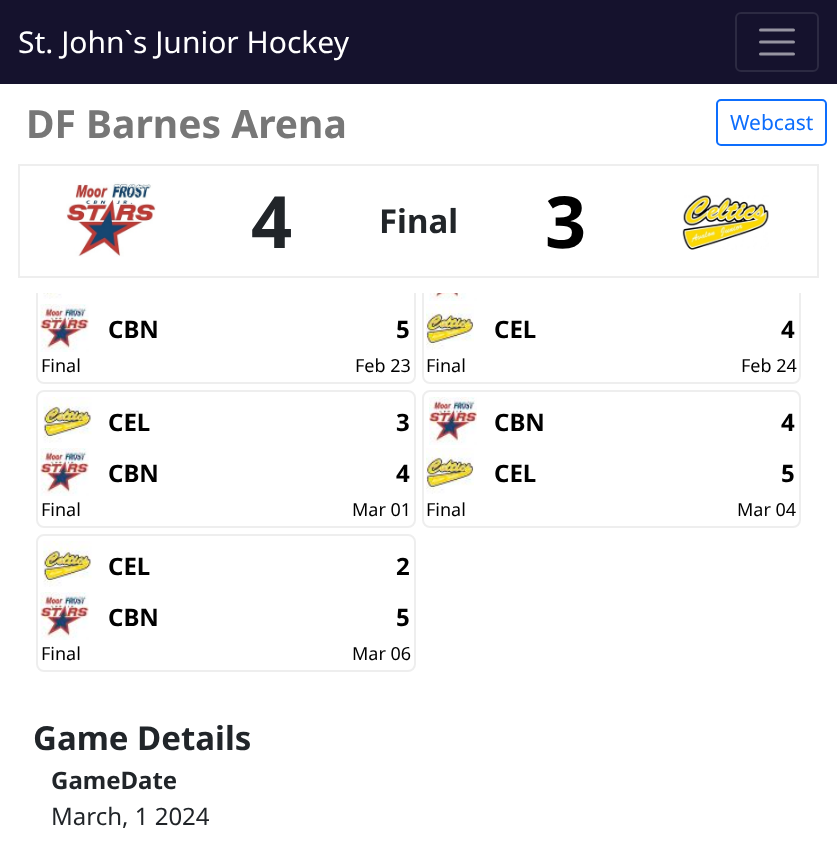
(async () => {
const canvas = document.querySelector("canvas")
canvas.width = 837
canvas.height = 842
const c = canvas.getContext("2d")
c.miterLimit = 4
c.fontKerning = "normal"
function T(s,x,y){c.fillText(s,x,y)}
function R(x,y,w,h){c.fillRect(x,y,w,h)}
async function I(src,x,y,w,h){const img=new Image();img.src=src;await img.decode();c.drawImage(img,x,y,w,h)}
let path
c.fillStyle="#fff"
R(0,0,837,842)
c.fillStyle="#15122d"
R(0,0,837,84)
c.font="30px Noto Sans"
c.fillStyle="#fff"
T("St. John`s Junior Hockey",18,53)
c.beginPath()
c.roundRect(736,13,82,58,5)
c.strokeStyle="#2c2a42"
c.lineWidth=2
c.stroke()
path = new Path2D("M760.5 30h33m-33 12h33m-33 12h33")
c.strokeStyle="#9694a1"
c.lineWidth=3
c.lineCap="round"
c.stroke(path)
c.beginPath()
c.roundRect(37,247,378,136,7)
c.strokeStyle="#eee"
c.lineWidth=2
c.stroke()
c.beginPath()
c.roundRect(423,247,377,136,7)
c.stroke()
R(36,246,765,47)
c.font="bold 39px Noto Sans"
c.fillStyle="#777"
T("DF Barnes Arena",26,138)
c.beginPath()
c.roundRect(717,100,109,45,4)
c.strokeStyle="#0d6efd"
c.stroke()
c.font="21px Noto Sans"
c.fillStyle="#0d6efd"
T("Webcast",730,130)
c.strokeStyle="#eee"
c.strokeRect(19,165,799,112)
await I("1.png",66,182,90,75)
c.font="bold 72px Noto Sans"
c.fillStyle="#212529"
T("4",251,248)
c.font="bold 33px Noto Sans"
T("Final",379,233)
c.font="bold 72px Noto Sans"
c.fillStyle="#000"
T("3",545,248)
await I("2.png",682,195,87,55)
await I("3.png",43,293,49,6)
await I("4.png",40,304,49,48)
c.font="bold 24px Noto Sans"
T("CBN",108,338)
T("5",396,338)
c.font="18px Noto Sans"
T("Final",41,372)
T("Feb 23",355,372)
await I("5.png",429,293,48,8)
await I("6.png",426,304,48,46)
c.font="bold 24px Noto Sans"
T("CEL",494,338)
T("4",781,338)
c.font="18px Noto Sans"
T("Final",426,372)
T("Feb 24",741,372)
c.beginPath()
c.roundRect(37,391,378,136,7)
c.stroke()
await I("7.png",43,397,49,46)
c.font="bold 24px Noto Sans"
T("CEL",108,431)
T("3",396,431)
await I("8.png",40,448,49,48)
T("CBN",108,482)
T("4",396,482)
c.font="18px Noto Sans"
T("Final",41,516)
T("Mar 01",352,516)
c.beginPath()
c.roundRect(423,391,377,136,7)
c.stroke()
await I("9.png",429,397,48,48)
c.font="bold 24px Noto Sans"
T("CBN",494,431)
T("4",781,431)
await I("10.png",426,448,48,46)
T("CEL",494,482)
T("5",781,482)
c.font="18px Noto Sans"
T("Final",426,516)
T("Mar 04",737,516)
c.beginPath()
c.roundRect(37,535,378,136,7)
c.stroke()
await I("11.png",43,541,49,46)
c.font="bold 24px Noto Sans"
T("CEL",108,575)
T("2",396,575)
await I("12.png",40,592,49,48)
T("CBN",108,626)
T("5",396,626)
c.font="18px Noto Sans"
T("Final",41,660)
T("Mar 06",352,660)
c.font="bold 33px Noto Sans"
c.fillStyle="#212529"
T("Game Details",33,750)
c.font="bold 24px Noto Sans"
T("GameDate",51,789)
c.font="24px Noto Sans"
T("March, 1 2024",51,825)
})()
